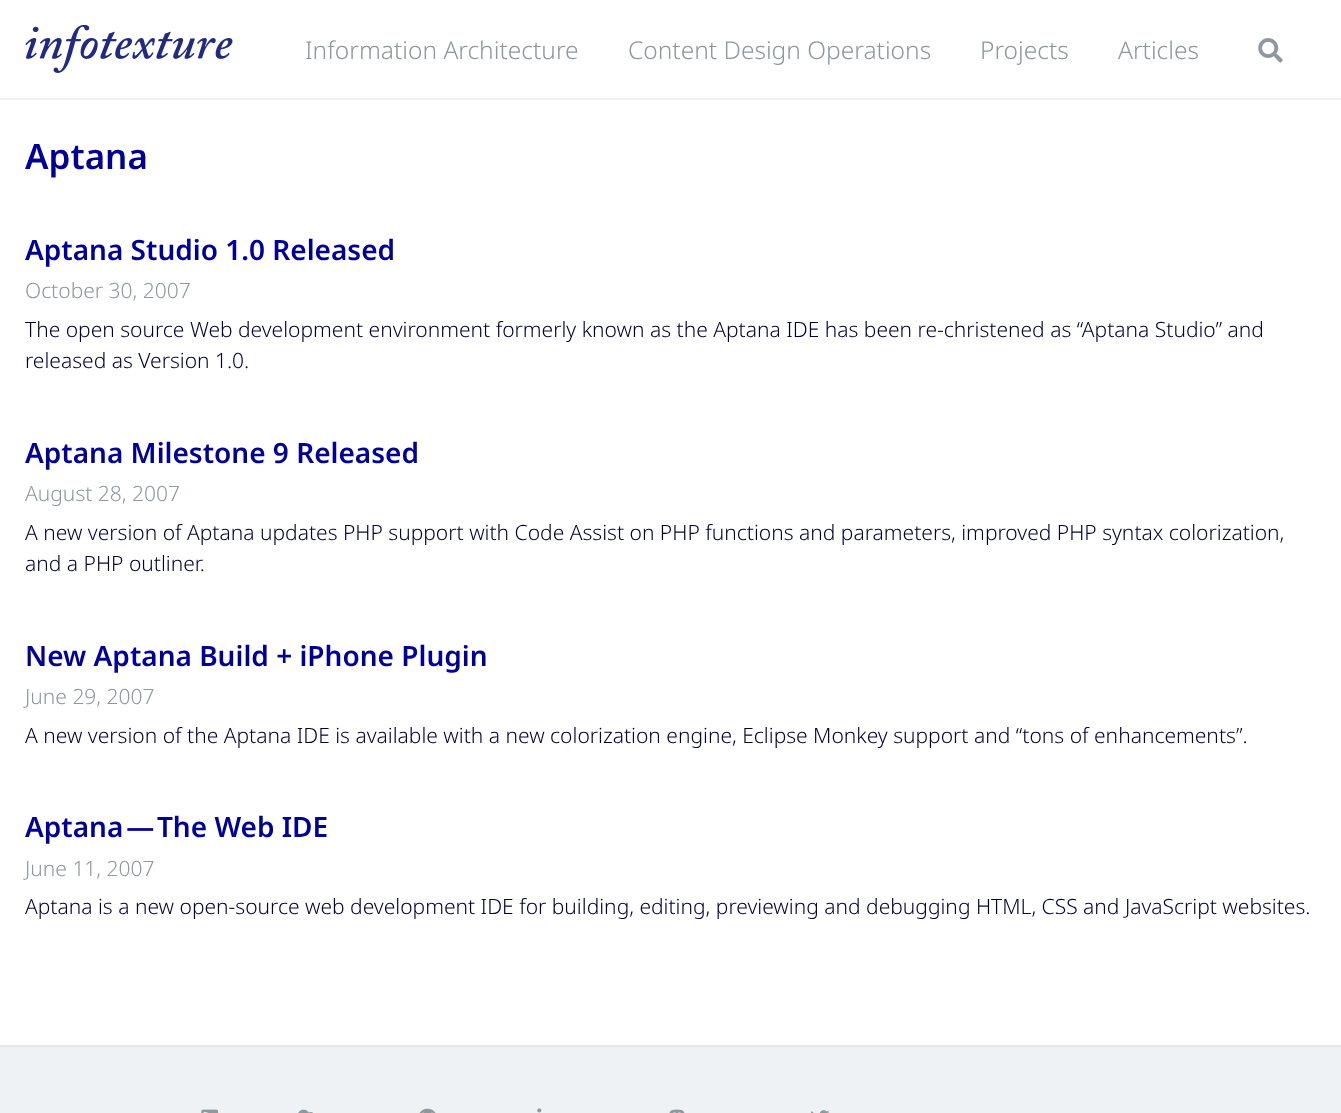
(async () => {
const canvas = document.querySelector("canvas")
canvas.width = 1341
canvas.height = 1113
const c = canvas.getContext("2d")
c.miterLimit = 4
c.fontKerning = "normal"
function T(s,x,y){c.fillText(s,x,y)}
function R(x,y,w,h){c.fillRect(x,y,w,h)}
async function I(src,x,y,w,h){const img=new Image();img.src=src;await img.decode();c.drawImage(img,x,y,w,h)}
c.fillStyle="#fff"
R(0,0,1341,1113)
c.fillStyle="#eef2f4"
R(0,98,1341,2)
await I("1.png",25,25,208,48)
c.font="300 24.5px Noto Sans"
c.fillStyle="#8d989f"
T("Information Architecture",305,59)
T("Content Design Operations",628,59)
T("Projects",980,59)
T("Articles",1118,59)
await I("2.png",1258,38,25,25)
c.font="600 35px Noto Sans"
c.fillStyle="#009"
T("Aptana",25,169)
c.font="600 28px Noto Sans"
T("Aptana Studio 1.0 Released",25,260)
c.font="300 21px Noto Sans"
c.fillStyle="#8d989f"
T("October 30, 2007",25,298)
c.fillStyle="#003"
T("The open source Web development environment formerly known as the Aptana IDE has been re-christened as “Aptana Studio” and",25,337)
T("released as Version 1.0.",25,368)
c.font="600 28px Noto Sans"
c.fillStyle="#009"
T("Aptana Milestone 9 Released",25,463)
c.font="300 21px Noto Sans"
c.fillStyle="#8d989f"
T("August 28, 2007",25,501)
c.fillStyle="#003"
T("A new version of Aptana updates PHP support with Code Assist on PHP functions and parameters, improved PHP syntax colorization,",25,540)
T("and a PHP outliner.",25,571)
c.font="600 28px Noto Sans"
c.fillStyle="#009"
T("New Aptana Build + iPhone Plugin",25,666)
c.font="300 21px Noto Sans"
c.fillStyle="#8d989f"
T("June 29, 2007",25,704)
c.fillStyle="#003"
T("A new version of the Aptana IDE is available with a new colorization engine, Eclipse Monkey support and “tons of enhancements”.",25,743)
c.font="600 28px Noto Sans"
c.fillStyle="#009"
T("Aptana — The Web IDE",25,837)
c.font="300 21px Noto Sans"
c.fillStyle="#8d989f"
T("June 11, 2007",25,876)
c.fillStyle="#003"
T("Aptana is a new open-source web development IDE for building, editing, previewing and debugging HTML, CSS and JavaScript websites.",25,914)
c.fillStyle="#eff2f4"
R(0,1047,1341,66)
c.fillStyle="#e2e8ec"
R(0,1045,1341,2)
await I("3.png",201,1109,18,4)
await I("4.png",298,1109,15,4)
await I("5.png",419,1108,17,5)
await I("6.png",537,1108,5,5)
await I("7.png",669,1109,16,4)
await I("8.png",811,1110,19,3)
})()
